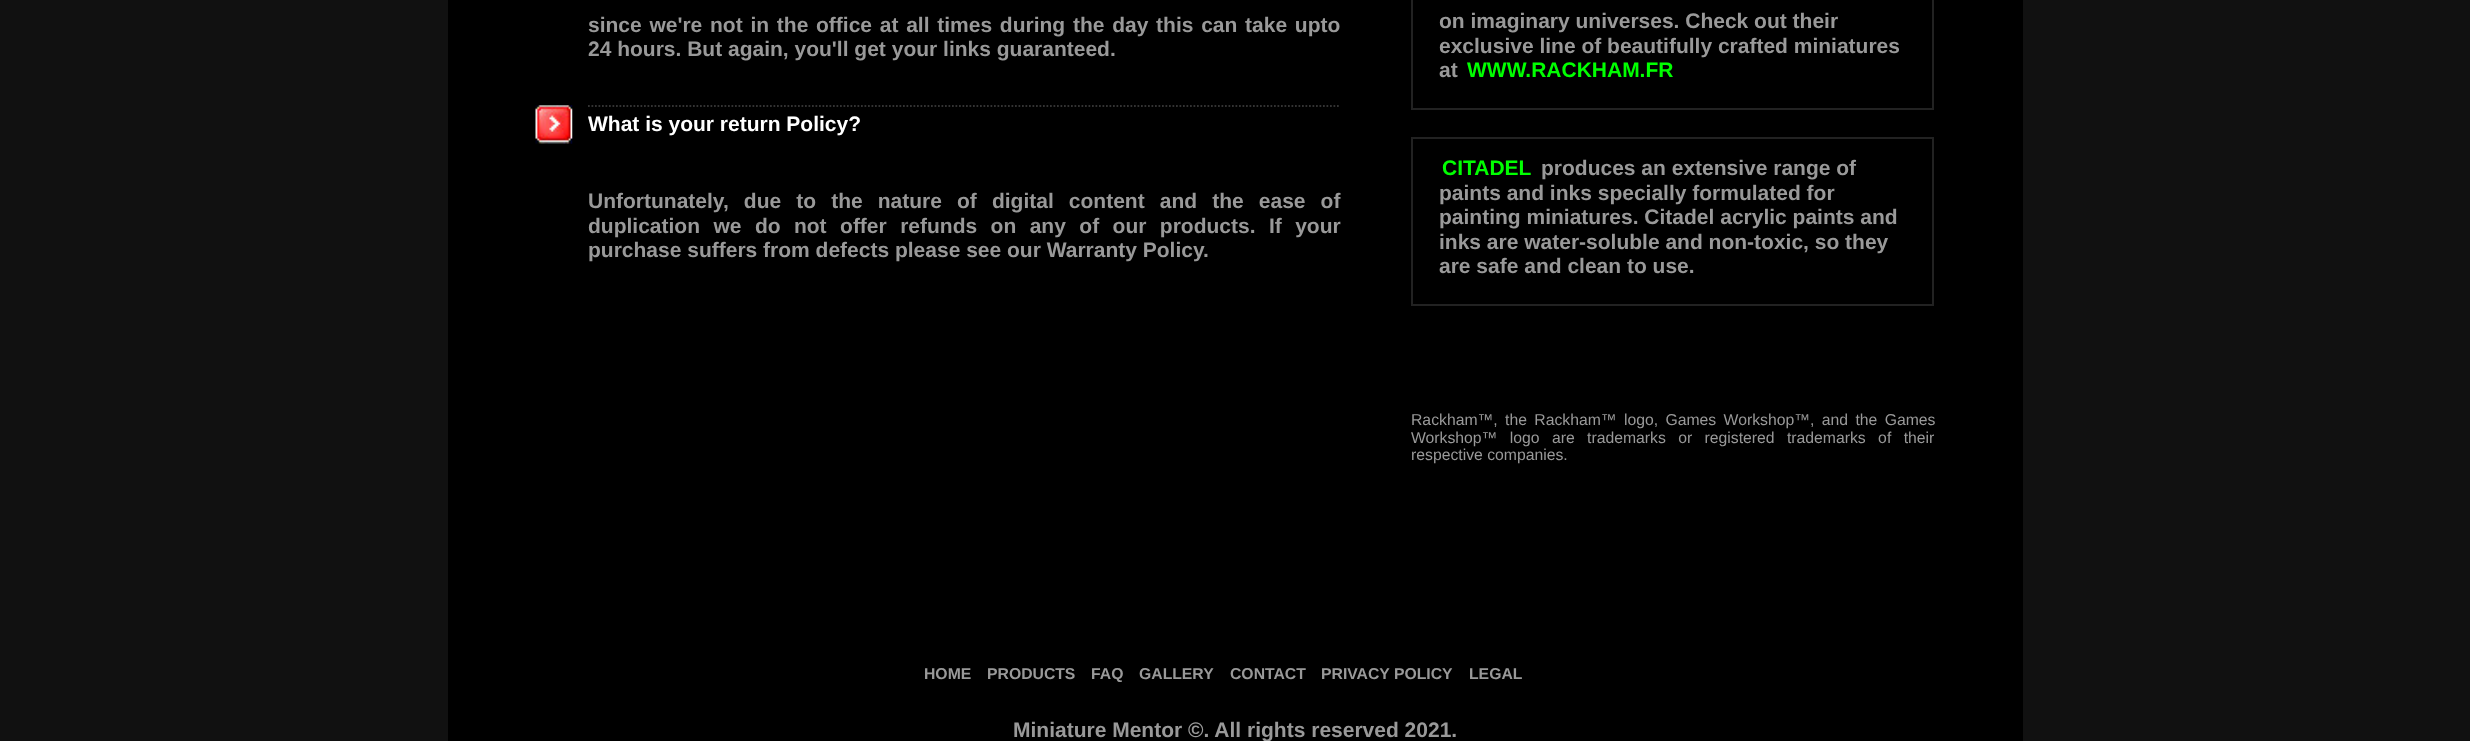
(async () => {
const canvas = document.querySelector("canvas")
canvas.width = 2470
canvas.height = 741
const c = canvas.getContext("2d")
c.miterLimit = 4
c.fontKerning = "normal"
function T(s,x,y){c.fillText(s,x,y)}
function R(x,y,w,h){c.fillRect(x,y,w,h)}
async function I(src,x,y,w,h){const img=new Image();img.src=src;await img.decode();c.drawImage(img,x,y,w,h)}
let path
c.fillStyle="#111"
R(0,0,2470,741)
c.fillStyle="#000"
R(448,0,1575,741)
c.wordSpacing="1.9px"
c.font="bold 21px Liberation Sans"
c.fillStyle="#999"
T("since we're not in the office at all times during the day this can take upto",588,32)
c.wordSpacing="0px"
T("24 hours. But again, you'll get your links guaranteed.",588,56)
await I("1.png",535,105,38,39)
path = new Path2D("M588 106h752.5")
c.strokeStyle="#333"
c.lineWidth=1.8
c.setLineDash([1.75,1.75])
c.stroke(path)
c.fillStyle="#fff"
T("What is your return Policy?",588,131)
c.wordSpacing="9.25px"
c.fillStyle="#999"
T("Unfortunately, due to the nature of digital content and the ease of",588,208)
c.wordSpacing="7.6px"
T("duplication we do not offer refunds on any of our products. If your",588,233)
c.wordSpacing="0px"
T("purchase suffers from defects please see our Warranty Policy.",588,257)
c.strokeStyle="#222"
c.lineWidth=2
c.setLineDash([])
c.strokeRect(1412,-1,521,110)
T("on imaginary universes. Check out their",1439,28)
T("exclusive line of beautifully crafted miniatures",1439,53)
T("at",1439,77)
c.fillStyle="#0f0"
T("WWW.RACKHAM.FR",1467,77)
c.strokeRect(1412,138,521,167)
T("CITADEL",1442,175)
c.fillStyle="#999"
T("produces an extensive range of",1541,175)
T("paints and inks specially formulated for",1439,200)
T("painting miniatures. Citadel acrylic paints and",1439,224)
T("inks are water-soluble and non-toxic, so they",1439,249)
T("are safe and clean to use.",1439,273)
c.wordSpacing="3px"
c.font="15.75px Liberation Sans"
T("Rackham™, the Rackham™ logo, Games Workshop™, and the Games",1411,425)
c.wordSpacing="8px"
T("Workshop™ logo are trademarks or registered trademarks of their",1411,443)
c.wordSpacing="0px"
T("respective companies.",1411,460)
c.font="bold 15.75px Liberation Sans"
T("HOME",924,679)
T("PRODUCTS",987,679)
T("FAQ",1091,679)
T("GALLERY",1139,679)
T("CONTACT",1230,679)
T("PRIVACY POLICY",1321,679)
T("LEGAL",1469,679)
c.font="bold 21px Liberation Sans"
T("Miniature Mentor ©. All rights reserved 2021.",1013,737)
})()
